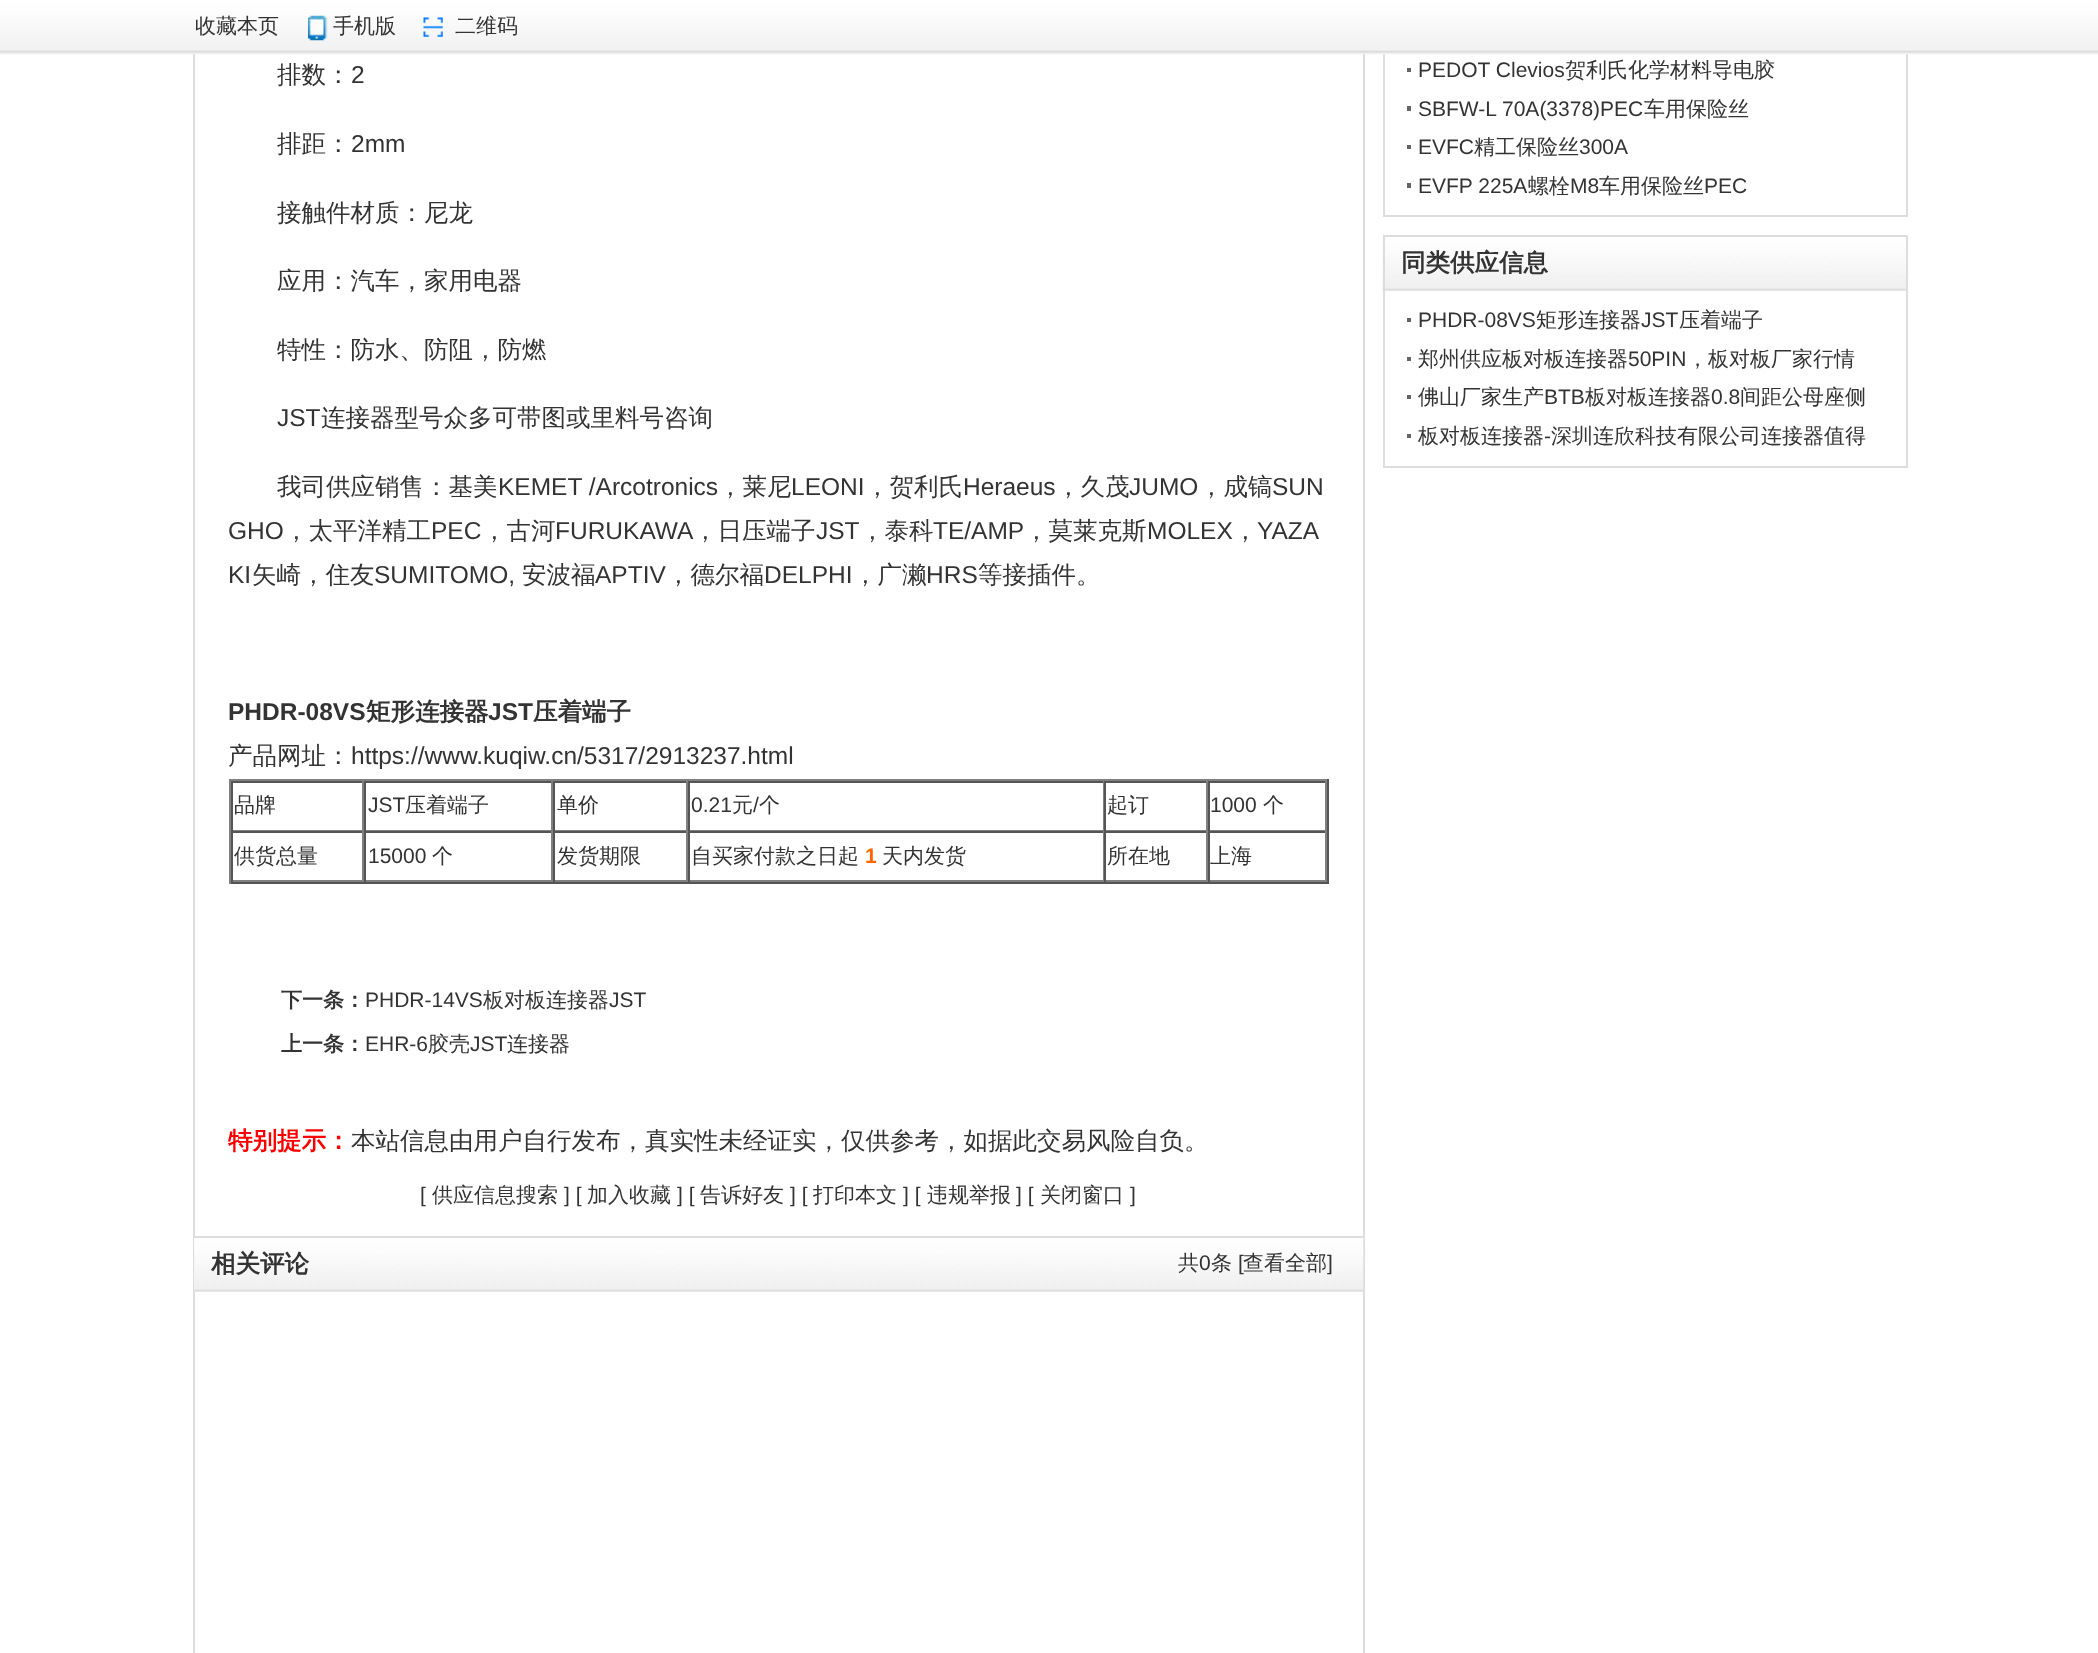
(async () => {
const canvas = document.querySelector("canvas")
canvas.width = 2098
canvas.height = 1653
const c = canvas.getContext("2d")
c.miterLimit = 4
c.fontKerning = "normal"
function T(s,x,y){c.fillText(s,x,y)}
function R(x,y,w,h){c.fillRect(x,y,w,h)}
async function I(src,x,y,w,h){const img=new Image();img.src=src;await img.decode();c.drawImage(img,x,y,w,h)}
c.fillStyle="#fff"
R(0,0,2098,1653)
c.strokeStyle="#ddd"
c.lineWidth=2
c.strokeRect(194,-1,1170,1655)
c.fillStyle="#ddd"
R(1906,54,2,163)
R(1383,215,525,2)
R(1383,54,2,163)
await I("1.png",0,0,2098,55)
c.font="500 21px WenQuanYi Zen Hei"
c.fillStyle="#333"
T("收藏本页",195,33)
await I("2.png",308,15,20,26)
T("手机版",333,33)
await I("3.png",423,17,20,20)
T("二维码",455,33)
c.font="500 24.5px WenQuanYi Zen Hei"
T("排数：",277,83)
c.font="24.5px Liberation Sans"
T("2",351,83)
c.font="500 24.5px WenQuanYi Zen Hei"
T("排距：",277,152)
c.font="24.5px Liberation Sans"
T("2mm",351,152)
c.font="500 24.5px WenQuanYi Zen Hei"
T("接触件材质：尼龙",277,221)
T("应用：汽车，家用电器",277,289)
T("特性：防水、防阻，防燃",277,358)
c.font="24.5px Liberation Sans"
T("JST",277,426)
c.font="500 24.5px WenQuanYi Zen Hei"
T("连接器型号众多可带图或里料号咨询",321,426)
T("我司供应销售：基美",277,495)
c.font="24.5px Liberation Sans"
T("KEMET /Arcotronics",498,495)
c.font="500 24.5px WenQuanYi Zen Hei"
T("，莱尼",718,495)
c.font="24.5px Liberation Sans"
T("LEONI",791,495)
c.font="500 24.5px WenQuanYi Zen Hei"
T("，贺利氏",865,495)
c.font="24.5px Liberation Sans"
T("Heraeus",963,495)
c.font="500 24.5px WenQuanYi Zen Hei"
T("，久茂",1056,495)
c.font="24.5px Liberation Sans"
T("JUMO",1129,495)
c.font="500 24.5px WenQuanYi Zen Hei"
T("，成镐",1199,495)
c.font="24.5px Liberation Sans"
T("SUN",1272,495)
T("GHO",228,539)
c.font="500 24.5px WenQuanYi Zen Hei"
T("，太平洋精工",284,539)
c.font="24.5px Liberation Sans"
T("PEC",431,539)
c.font="500 24.5px WenQuanYi Zen Hei"
T("，古河",482,539)
c.font="24.5px Liberation Sans"
T("FURUKAWA",555,539)
c.font="500 24.5px WenQuanYi Zen Hei"
T("，日压端子",693,539)
c.font="24.5px Liberation Sans"
T("JST",816,539)
c.font="500 24.5px WenQuanYi Zen Hei"
T("，泰科",860,539)
c.font="24.5px Liberation Sans"
T("TE/AMP",933,539)
c.font="500 24.5px WenQuanYi Zen Hei"
T("，莫莱克斯",1024,539)
c.font="24.5px Liberation Sans"
T("MOLEX",1147,539)
c.font="500 24.5px WenQuanYi Zen Hei"
T("，",1233,539)
c.font="24.5px Liberation Sans"
T("YAZA",1257,539)
T("KI",228,583)
c.font="500 24.5px WenQuanYi Zen Hei"
T("矢崎，住友",252,583)
c.font="24.5px Liberation Sans"
T("SUMITOMO,",374,583)
c.font="500 24.5px WenQuanYi Zen Hei"
T("安波福",522,583)
c.font="24.5px Liberation Sans"
T("APTIV",595,583)
c.font="500 24.5px WenQuanYi Zen Hei"
T("，德尔福",666,583)
c.font="24.5px Liberation Sans"
T("DELPHI",764,583)
c.font="500 24.5px WenQuanYi Zen Hei"
T("，广濑",853,583)
c.font="24.5px Liberation Sans"
T("HRS",926,583)
c.font="500 24.5px WenQuanYi Zen Hei"
T("等接插件。",978,583)
c.font="bold 24.5px Liberation Sans"
T("PHDR-08VS",228,720)
c.font="bold 24.5px WenQuanYi Zen Hei"
T("矩形连接器",366,720)
c.font="bold 24.5px Liberation Sans"
T("JST",488,720)
c.font="bold 24.5px WenQuanYi Zen Hei"
T("压着端子",533,720)
c.font="500 24.5px WenQuanYi Zen Hei"
T("产品网址：",228,764)
c.font="24.5px Liberation Sans"
T("https://www.kuqiw.cn/5317/2913237.html",351,764)
c.fillStyle="#808080"
R(229,779,1099,2)
c.fillStyle="#555"
R(1327,779,2,105)
R(229,882,1099,2)
c.fillStyle="#808080"
R(229,779,2,105)
c.fillStyle="#555"
R(231,781,1096,2)
c.fillStyle="#808080"
R(362,781,2,50)
R(231,830,133,1)
c.fillStyle="#555"
R(231,781,2,50)
c.font="500 21px WenQuanYi Zen Hei"
c.fillStyle="#333"
T("品牌",234,812)
c.fillStyle="#808080"
R(551,781,2,50)
R(364,830,189,1)
c.fillStyle="#555"
R(364,781,2,50)
c.font="21px Liberation Sans"
c.fillStyle="#333"
T("JST",368,812)
c.font="500 21px WenQuanYi Zen Hei"
T("压着端子",405,812)
c.fillStyle="#808080"
R(686,781,2,50)
R(553,830,135,1)
c.fillStyle="#555"
R(553,781,2,50)
c.fillStyle="#333"
T("单价",557,812)
c.fillStyle="#808080"
R(1103,781,1,50)
R(688,830,416,1)
c.fillStyle="#555"
R(688,781,2,50)
c.font="21px Liberation Sans"
c.fillStyle="#333"
T("0.21",691,812)
c.font="500 21px WenQuanYi Zen Hei"
T("元",732,812)
c.font="21px Liberation Sans"
T("/",753,812)
c.font="500 21px WenQuanYi Zen Hei"
T("个",759,812)
c.fillStyle="#808080"
R(1206,781,2,50)
R(1104,830,104,1)
c.fillStyle="#555"
R(1104,781,2,50)
c.fillStyle="#333"
T("起订",1107,812)
c.fillStyle="#808080"
R(1325,781,2,50)
R(1208,830,119,1)
c.fillStyle="#555"
R(1208,781,2,50)
c.font="21px Liberation Sans"
c.fillStyle="#333"
T("1000",1210,812)
c.font="500 21px WenQuanYi Zen Hei"
T("个",1263,812)
c.fillStyle="#555"
R(231,831,1096,2)
c.fillStyle="#808080"
R(362,831,2,51)
R(231,880,133,2)
c.fillStyle="#555"
R(231,831,2,51)
c.fillStyle="#333"
T("供货总量",234,863)
c.fillStyle="#808080"
R(551,831,2,51)
R(364,880,189,2)
c.fillStyle="#555"
R(364,831,2,51)
c.font="21px Liberation Sans"
c.fillStyle="#333"
T("15000",368,863)
c.font="500 21px WenQuanYi Zen Hei"
T("个",432,863)
c.fillStyle="#808080"
R(686,831,2,51)
R(553,880,135,2)
c.fillStyle="#555"
R(553,831,2,51)
c.fillStyle="#333"
T("发货期限",557,863)
c.fillStyle="#808080"
R(1103,831,1,51)
R(688,880,416,2)
c.fillStyle="#555"
R(688,831,2,51)
c.fillStyle="#333"
T("自买家付款之日起",691,863)
c.font="bold 21px Liberation Sans"
c.fillStyle="#f60"
T("1",865,863)
c.font="500 21px WenQuanYi Zen Hei"
c.fillStyle="#333"
T("天内发货",882,863)
c.fillStyle="#808080"
R(1206,831,2,51)
R(1104,880,104,2)
c.fillStyle="#555"
R(1104,831,2,51)
c.fillStyle="#333"
T("所在地",1107,863)
c.fillStyle="#808080"
R(1325,831,2,51)
R(1208,880,119,2)
c.fillStyle="#555"
R(1208,831,2,51)
c.fillStyle="#333"
T("上海",1210,863)
c.font="bold 21px WenQuanYi Zen Hei"
T("下一条：",281,1007)
c.font="21px Liberation Sans"
T("PHDR-14VS",365,1007)
c.font="500 21px WenQuanYi Zen Hei"
T("板对板连接器",483,1007)
c.font="21px Liberation Sans"
T("JST",609,1007)
c.font="bold 21px WenQuanYi Zen Hei"
T("上一条：",281,1051)
c.font="21px Liberation Sans"
T("EHR-6",365,1051)
c.font="500 21px WenQuanYi Zen Hei"
T("胶壳",428,1051)
c.font="21px Liberation Sans"
T("JST",470,1051)
c.font="500 21px WenQuanYi Zen Hei"
T("连接器",507,1051)
c.font="bold 24.5px WenQuanYi Zen Hei"
c.fillStyle="#f00"
T("特别提示：",228,1149)
c.font="500 24.5px WenQuanYi Zen Hei"
c.fillStyle="#333"
T("本站信息由用户自行发布，真实性未经证实，仅供参考，如据此交易风险自负。",351,1149)
c.font="21px Liberation Sans"
T("[",420,1202)
c.font="500 21px WenQuanYi Zen Hei"
T("供应信息搜索",432,1202)
c.font="21px Liberation Sans"
T("] [",564,1202)
c.font="500 21px WenQuanYi Zen Hei"
T("加入收藏",587,1202)
c.font="21px Liberation Sans"
T("] [",677,1202)
c.font="500 21px WenQuanYi Zen Hei"
T("告诉好友",700,1202)
c.font="21px Liberation Sans"
T("] [",790,1202)
c.font="500 21px WenQuanYi Zen Hei"
T("打印本文",813,1202)
c.font="21px Liberation Sans"
T("] [",903,1202)
c.font="500 21px WenQuanYi Zen Hei"
T("违规举报",927,1202)
c.font="21px Liberation Sans"
T("] [",1016,1202)
c.font="500 21px WenQuanYi Zen Hei"
T("关闭窗口",1040,1202)
c.font="21px Liberation Sans"
T("]",1130,1202)
c.fillStyle="#eee"
R(194,1238,1169,54)
await I("4.png",194,1237,1170,55)
c.fillStyle="#ddd"
R(194,1236,1169,2)
c.font="bold 24.5px WenQuanYi Zen Hei"
c.fillStyle="#333"
T("相关评论",211,1272)
c.font="500 21px WenQuanYi Zen Hei"
T("共",1178,1270)
c.font="21px Liberation Sans"
T("0",1199,1270)
c.font="500 21px WenQuanYi Zen Hei"
T("条",1211,1270)
c.font="21px Liberation Sans"
T("[",1238,1270)
c.font="500 21px WenQuanYi Zen Hei"
T("查看全部",1243,1270)
c.font="21px Liberation Sans"
T("]",1327,1270)
c.fillStyle="#646464"
R(1407,68,4,4)
c.fillStyle="#333"
T("PEDOT Clevios",1418,77)
c.font="500 21px WenQuanYi Zen Hei"
T("贺利氏化学材料导电胶",1565,77)
c.fillStyle="#646464"
R(1407,106,4,5)
c.font="21px Liberation Sans"
c.fillStyle="#333"
T("SBFW-L 70A(3378)PEC",1418,116)
c.font="500 21px WenQuanYi Zen Hei"
T("车用保险丝",1644,116)
c.fillStyle="#646464"
R(1407,145,4,4)
c.font="21px Liberation Sans"
c.fillStyle="#333"
T("EVFC",1418,154)
c.font="500 21px WenQuanYi Zen Hei"
T("精工保险丝",1474,154)
c.font="21px Liberation Sans"
T("300A",1579,154)
c.fillStyle="#646464"
R(1407,183,4,5)
c.fillStyle="#333"
T("EVFP 225A",1418,193)
c.font="500 21px WenQuanYi Zen Hei"
T("螺栓",1528,193)
c.font="21px Liberation Sans"
T("M8",1570,193)
c.font="500 21px WenQuanYi Zen Hei"
T("车用保险丝",1599,193)
c.font="21px Liberation Sans"
T("PEC",1704,193)
c.fillStyle="#eee"
R(1385,290,521,1)
await I("5.png",1382,236,524,55)
c.fillStyle="#ddd"
R(1383,235,525,2)
R(1906,235,2,56)
R(1383,235,2,56)
c.font="bold 24.5px WenQuanYi Zen Hei"
c.fillStyle="#333"
T("同类供应信息",1401,271)
c.fillStyle="#ddd"
R(1906,291,2,176)
R(1383,466,525,2)
R(1383,291,2,176)
c.fillStyle="#646464"
R(1407,318,4,4)
c.font="21px Liberation Sans"
c.fillStyle="#333"
T("PHDR-08VS",1418,327)
c.font="500 21px WenQuanYi Zen Hei"
T("矩形连接器",1536,327)
c.font="21px Liberation Sans"
T("JST",1641,327)
c.font="500 21px WenQuanYi Zen Hei"
T("压着端子",1679,327)
c.fillStyle="#646464"
R(1407,357,4,4)
c.fillStyle="#333"
T("郑州供应板对板连接器",1418,366)
c.font="21px Liberation Sans"
T("50PIN",1628,366)
c.font="500 21px WenQuanYi Zen Hei"
T("，板对板厂家行情",1687,366)
c.fillStyle="#646464"
R(1407,395,4,4)
c.fillStyle="#333"
T("佛山厂家生产",1418,404)
c.font="21px Liberation Sans"
T("BTB",1544,404)
c.font="500 21px WenQuanYi Zen Hei"
T("板对板连接器",1585,404)
c.font="21px Liberation Sans"
T("0.8",1711,404)
c.font="500 21px WenQuanYi Zen Hei"
T("间距公母座侧",1740,404)
c.fillStyle="#646464"
R(1407,434,4,4)
c.fillStyle="#333"
T("板对板连接器",1418,443)
c.font="21px Liberation Sans"
T("-",1544,443)
c.font="500 21px WenQuanYi Zen Hei"
T("深圳连欣科技有限公司连接器值得",1551,443)
})()
